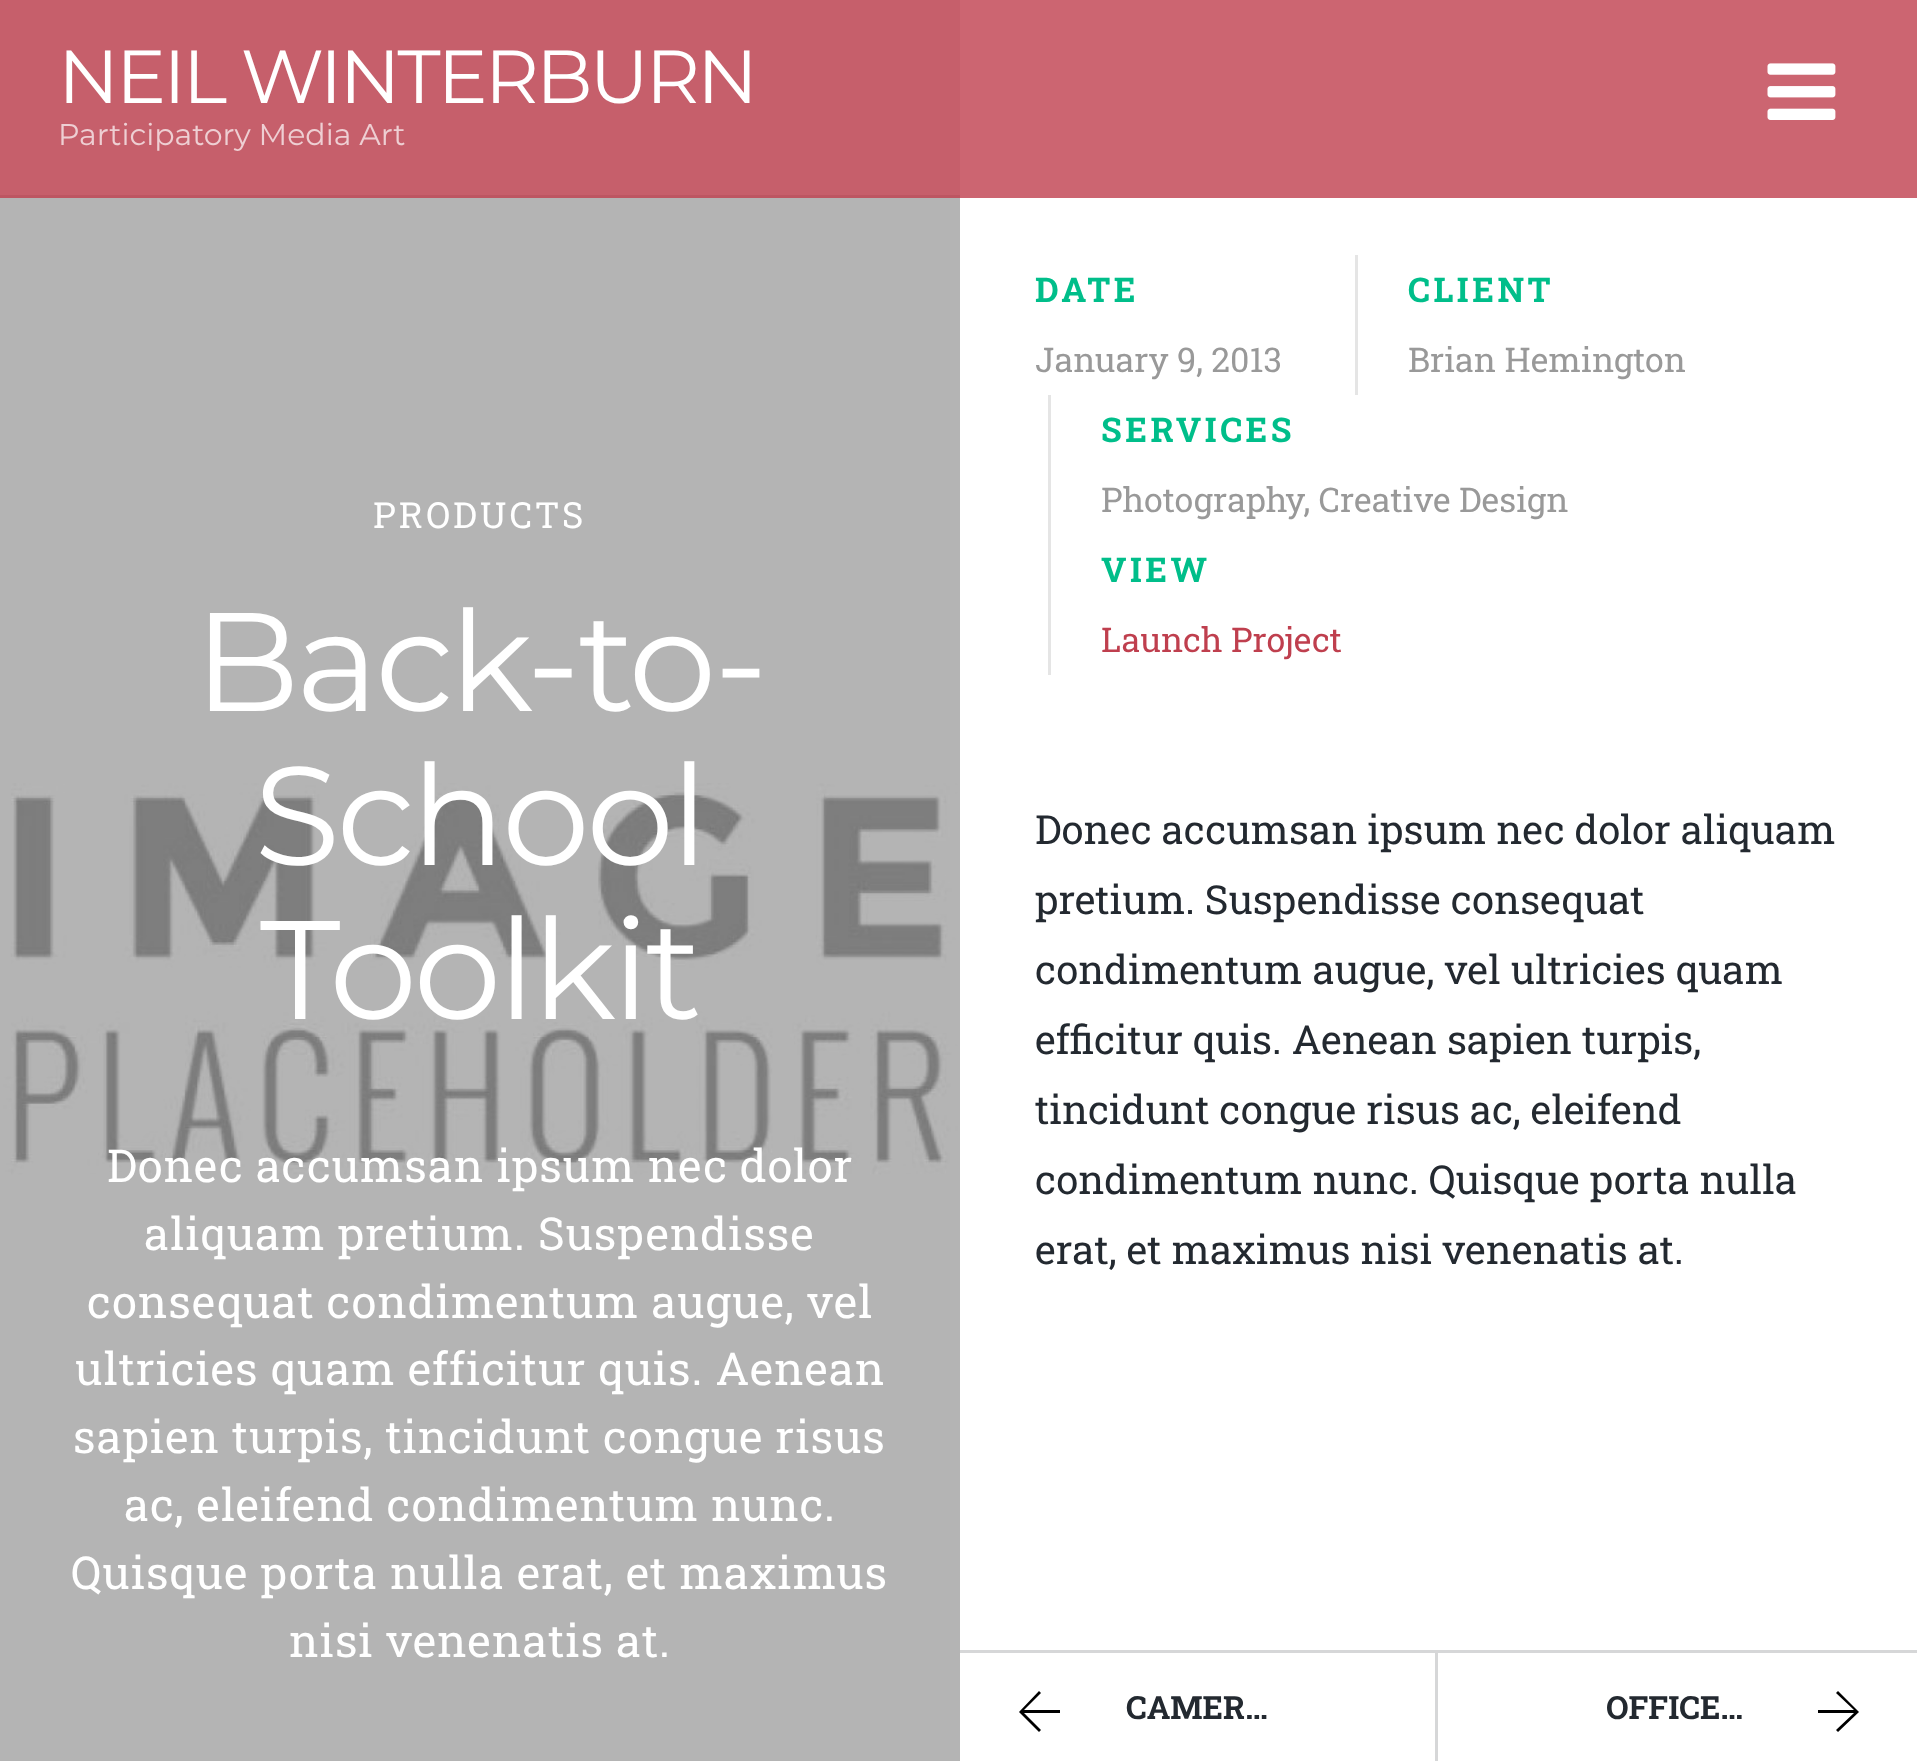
(async () => {
const canvas = document.querySelector("canvas")
canvas.width = 1917
canvas.height = 1761
const c = canvas.getContext("2d")
c.miterLimit = 4
c.fontKerning = "normal"
function T(s,x,y){c.fillText(s,x,y)}
function R(x,y,w,h){c.fillRect(x,y,w,h)}
async function I(src,x,y,w,h){const img=new Image();img.src=src;await img.decode();c.drawImage(img,x,y,w,h)}
let path
c.fillStyle="#fff"
R(0,0,1917,1761)
await I("2.png",0,0,960,1761)
c.fillStyle="#00000033"
R(0,195,960,1566)
c.fillStyle="#bf3f4ecc"
R(0,0,1917,198)
c.letterSpacing="-3px"
c.font="75px Montserrat"
c.fillStyle="#fff"
T("NEIL WINTERBURN",58,103)
c.letterSpacing="0px"
c.font="30px Montserrat"
c.fillStyle="#eecfd3"
T("Participatory Media Art",58,145)
await I("1.png",1767,63,69,57)
c.letterSpacing="3px"
c.font="36px Roboto Slab"
c.fillStyle="#fff"
T("PRODUCTS",373,528)
c.letterSpacing="-3.5px"
c.font="140px Montserrat"
T("Back-to-",194,711)
T("School",254,865)
T("Toolkit",260,1019)
c.letterSpacing="0.9px"
c.font="45.25px Roboto Slab"
T("Donec accumsan ipsum nec dolor",107,1182)
T("aliquam pretium. Suspendisse",144,1250)
T("consequat condimentum augue, vel",87,1318)
T("ultricies quam efficitur quis. Aenean",75,1385)
T("sapien turpis, tincidunt congue risus",73,1453)
T("ac, eleifend condimentum nunc.",124,1521)
T("Quisque porta nulla erat, et maximus",71,1589)
T("nisi venenatis at.",289,1657)
c.letterSpacing="3.5px"
c.font="bold 34px Roboto Slab"
c.fillStyle="#00be8a"
T("DATE",1035,302)
c.letterSpacing="0px"
c.font="34px Roboto Slab"
c.fillStyle="#999"
T("January 9, 2013",1035,372)
c.fillStyle="#e5e5e5"
R(1355,255,3,140)
c.letterSpacing="3.5px"
c.font="bold 34px Roboto Slab"
c.fillStyle="#00be8a"
T("CLIENT",1408,302)
c.letterSpacing="0px"
c.font="34px Roboto Slab"
c.fillStyle="#999"
T("Brian Hemington",1408,372)
c.fillStyle="#e5e5e5"
R(1048,395,3,280)
c.letterSpacing="3.5px"
c.font="bold 34px Roboto Slab"
c.fillStyle="#00be8a"
T("SERVICES",1101,442)
c.letterSpacing="0px"
c.font="34px Roboto Slab"
c.fillStyle="#999"
T("Photography, Creative Design",1101,512)
c.letterSpacing="3.5px"
c.font="bold 34px Roboto Slab"
c.fillStyle="#00be8a"
T("VIEW",1101,582)
c.letterSpacing="0px"
c.font="34px Roboto Slab"
c.fillStyle="#bf3f4e"
T("Launch Project",1101,652)
c.font="40px Roboto Slab"
c.fillStyle="#232930"
T("Donec accumsan ipsum nec dolor aliquam",1035,844)
T("pretium. Suspendisse consequat",1035,914)
T("condimentum augue, vel ultricies quam",1035,984)
T("efficitur quis. Aenean sapien turpis,",1035,1054)
T("tincidunt congue risus ac, eleifend",1035,1124)
T("condimentum nunc. Quisque porta nulla",1035,1194)
T("erat, et maximus nisi venenatis at.",1035,1264)
c.fillStyle="#d6d7d8"
R(960,1650,957,3)
R(1435,1650,3,111)
c.fillStyle="#000"
path = new Path2D("M1060 1713h-36l17 17l-2 2l-20-20l20-21l2 2l-17 17h36z")
c.fill(path)
c.font="bold 32px Roboto Slab"
c.fillStyle="#232930"
T("CAMER…",1126,1719)
T("OFFICE…",1606,1719)
c.fillStyle="#000"
path = new Path2D("M1859 1712l-21 20l-2-2l18-17h-36v-3h36l-18-17l2-2z")
c.fill(path)
})()
